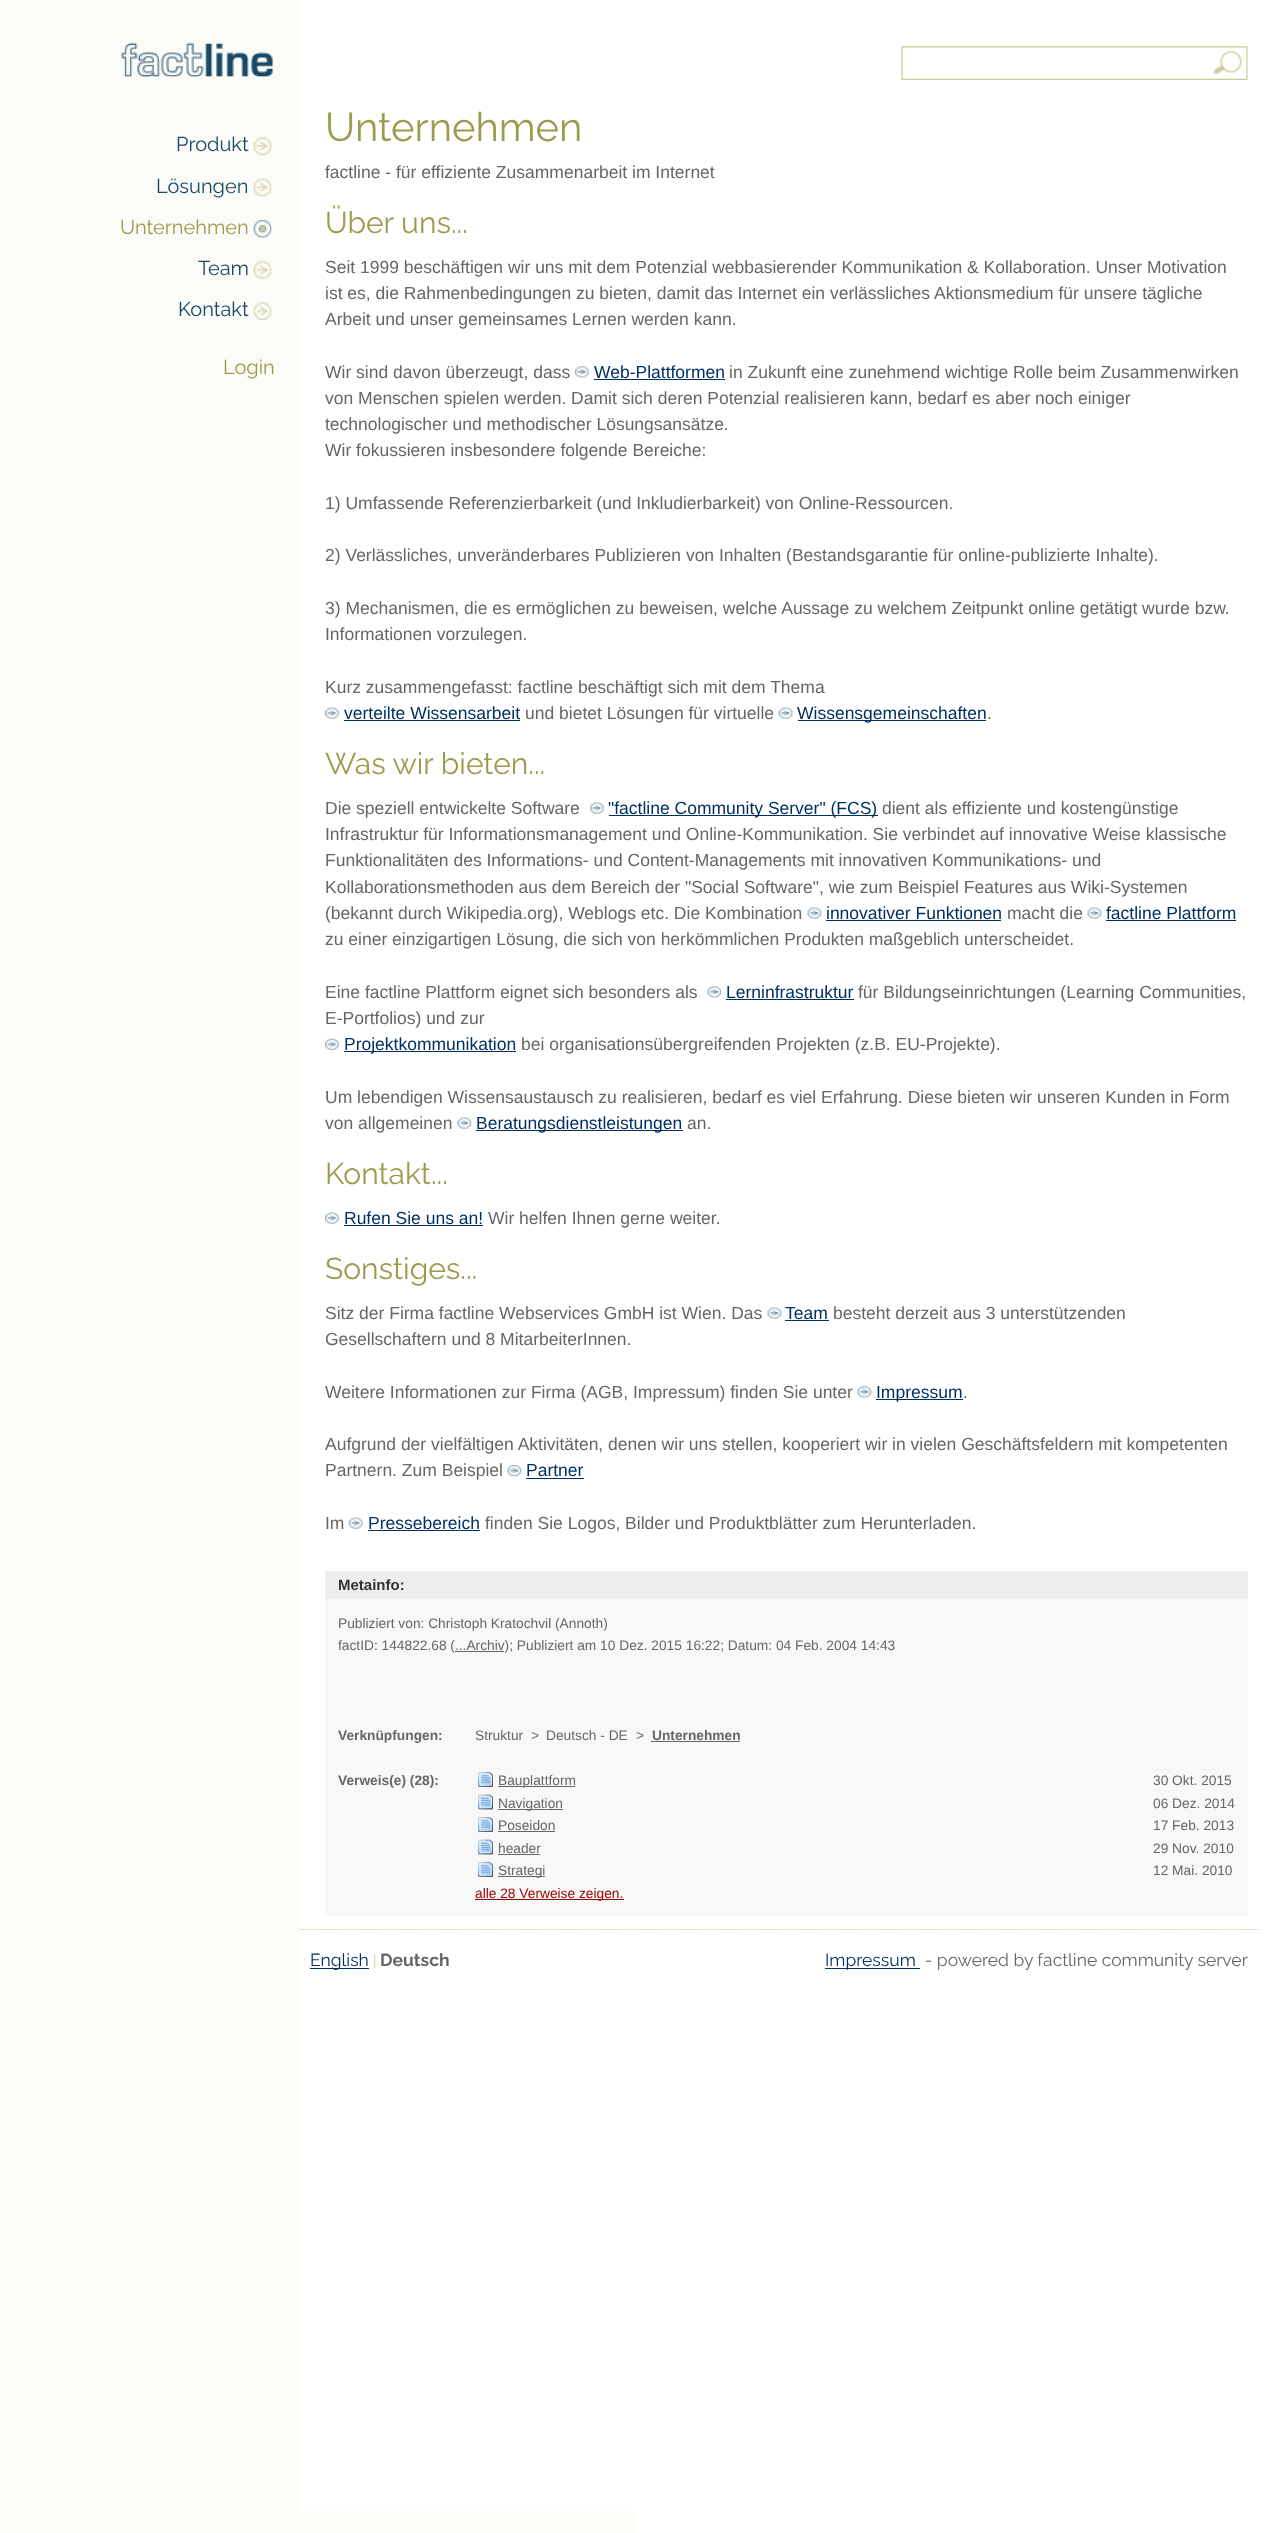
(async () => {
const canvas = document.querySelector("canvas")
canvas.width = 1269
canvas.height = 2533
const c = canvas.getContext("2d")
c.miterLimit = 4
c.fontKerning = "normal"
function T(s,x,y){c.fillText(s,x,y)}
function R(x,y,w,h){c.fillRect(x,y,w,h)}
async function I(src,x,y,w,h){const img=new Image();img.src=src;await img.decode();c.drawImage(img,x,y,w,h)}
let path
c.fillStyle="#fff"
R(0,0,1269,2533)
c.fillStyle="#fbfbf7"
R(0,0,635,2533)
await I("1.png",121,42,152,36)
c.fillStyle="#fff"
R(300,0,335,2511)
await I("2.png",901,46,347,34)
await I("3.png",253,137,19,18)
c.font="20px Raleway"
c.fillStyle="#194968"
T("Produkt",176,151)
await I("4.png",253,178,19,19)
T("Lösungen",156,193)
await I("5.png",253,220,19,18)
c.fillStyle="#9b9b4d"
T("Unternehmen",120,234)
await I("6.png",253,261,19,18)
c.fillStyle="#194968"
T("Team",198,275)
await I("3.png",253,302,19,18)
T("Kontakt",178,316)
c.fillStyle="#9b9b4d"
T("Login",223,374)
c.font="40px Raleway"
T("Unternehmen",325,141)
c.font="17.5px Liberation Sans"
c.fillStyle="#666"
T("factline - für effiziente Zusammenarbeit im Internet",325,178)
c.font="30px Raleway"
c.fillStyle="#9b9b4d"
T("Über uns...",325,233)
c.font="17.5px Liberation Sans"
c.fillStyle="#666"
T("Seit 1999 beschäftigen wir uns mit dem Potenzial webbasierender Kommunikation & Kollaboration. Unser Motivation",325,273)
T("ist es, die Rahmenbedingungen zu bieten, damit das Internet ein verlässliches Aktionsmedium für unsere tägliche",325,299)
T("Arbeit und unser gemeinsames Lernen werden kann.",325,325)
T("Wir sind davon überzeugt, dass",325,378)
await I("7.png",575,366,14,12)
c.fillStyle="#003063"
T("Web-Plattformen",594,378)
R(594,379,131,1)
c.fillStyle="#666"
T("in Zukunft eine zunehmend wichtige Rolle beim Zusammenwirken",729,378)
T("von Menschen spielen werden. Damit sich deren Potenzial realisieren kann, bedarf es aber noch einiger",325,404)
T("technologischer und methodischer Lösungsansätze.",325,430)
T("Wir fokussieren insbesondere folgende Bereiche:",325,456)
T("1) Umfassende Referenzierbarkeit (und Inkludierbarkeit) von Online-Ressourcen.",325,509)
T("2) Verlässliches, unveränderbares Publizieren von Inhalten (Bestandsgarantie für online-publizierte Inhalte).",325,561)
T("3) Mechanismen, die es ermöglichen zu beweisen, welche Aussage zu welchem Zeitpunkt online getätigt wurde bzw.",325,614)
T("Informationen vorzulegen.",325,640)
T("Kurz zusammengefasst: factline beschäftigt sich mit dem Thema",325,693)
await I("8.png",325,707,14,12)
c.fillStyle="#003063"
T("verteilte Wissensarbeit",344,719)
R(344,720,176,1)
c.fillStyle="#666"
T("und bietet Lösungen für virtuelle",525,719)
await I("9.png",778,707,15,12)
c.fillStyle="#003063"
R(798,720,188,1)
T("Wissensgemeinschaften",797,719)
c.fillStyle="#666"
T(".",987,719)
c.font="30px Raleway"
c.fillStyle="#9b9b4d"
T("Was wir bieten...",325,774)
c.font="17.5px Liberation Sans"
c.fillStyle="#666"
T("Die speziell entwickelte Software",325,814)
await I("8.png",590,802,14,12)
c.fillStyle="#003063"
R(609,815,269,1)
T("\"factline Community Server\" (FCS)",608,814)
c.fillStyle="#666"
T("dient als effiziente und kostengünstige",882,814)
T("Infrastruktur für Informationsmanagement und Online-Kommunikation. Sie verbindet auf innovative Weise klassische",325,840)
T("Funktionalitäten des Informations- und Content-Managements mit innovativen Kommunikations- und",325,866)
T("Kollaborationsmethoden aus dem Bereich der \"Social Software\", wie zum Beispiel Features aus Wiki-Systemen",325,893)
T("(bekannt durch Wikipedia.org), Weblogs etc. Die Kombination",325,919)
await I("10.png",807,907,15,12)
c.fillStyle="#003063"
T("innovativer Funktionen",826,919)
R(826,920,175,1)
c.fillStyle="#666"
T("macht die",1007,919)
await I("11.png",1087,907,15,12)
c.fillStyle="#003063"
T("factline Plattform",1106,919)
R(1106,920,130,1)
c.fillStyle="#666"
T("zu einer einzigartigen Lösung, die sich von herkömmlichen Produkten maßgeblich unterscheidet.",325,945)
T("Eine factline Plattform eignet sich besonders als",325,998)
await I("12.png",707,986,15,12)
c.fillStyle="#003063"
T("Lerninfrastruktur",726,998)
R(726,999,128,1)
c.fillStyle="#666"
T("für Bildungseinrichtungen (Learning Communities,",858,998)
T("E-Portfolios) und zur",325,1024)
await I("13.png",325,1038,14,12)
c.fillStyle="#003063"
R(344,1051,172,1)
T("Projektkommunikation",344,1050)
c.fillStyle="#666"
T("bei organisationsübergreifenden Projekten (z.B. EU-Projekte).",521,1050)
T("Um lebendigen Wissensaustausch zu realisieren, bedarf es viel Erfahrung. Diese bieten wir unseren Kunden in Form",325,1103)
T("von allgemeinen",325,1129)
await I("11.png",457,1117,15,12)
c.fillStyle="#003063"
R(476,1130,207,1)
T("Beratungsdienstleistungen",476,1129)
c.fillStyle="#666"
T("an.",687,1129)
c.font="30px Raleway"
c.fillStyle="#9b9b4d"
T("Kontakt...",325,1184)
await I("8.png",325,1212,14,12)
c.font="17.5px Liberation Sans"
c.fillStyle="#003063"
T("Rufen Sie uns an!",344,1224)
R(344,1225,139,1)
c.fillStyle="#666"
T("Wir helfen Ihnen gerne weiter.",488,1224)
c.font="30px Raleway"
c.fillStyle="#9b9b4d"
T("Sonstiges...",325,1279)
c.font="17.5px Liberation Sans"
c.fillStyle="#666"
T("Sitz der Firma factline Webservices GmbH ist Wien. Das",325,1319)
await I("11.png",767,1307,15,12)
c.fillStyle="#003063"
T("Team",785,1319)
R(785,1320,44,1)
c.fillStyle="#666"
T("besteht derzeit aus 3 unterstützenden",833,1319)
T("Gesellschaftern und 8 MitarbeiterInnen.",325,1345)
T("Weitere Informationen zur Firma (AGB, Impressum) finden Sie unter",325,1398)
await I("12.png",857,1386,15,12)
c.fillStyle="#003063"
R(876,1399,87,1)
T("Impressum",876,1398)
c.fillStyle="#666"
T(".",963,1398)
T("Aufgrund der vielfältigen Aktivitäten, denen wir uns stellen, kooperiert wir in vielen Geschäftsfeldern mit kompetenten",325,1450)
T("Partnern. Zum Beispiel",325,1476)
await I("14.png",507,1465,15,12)
c.fillStyle="#003063"
T("Partner",526,1476)
R(526,1478,58,1)
c.fillStyle="#666"
T("Im",325,1529)
await I("9.png",348,1517,15,12)
c.fillStyle="#003063"
T("Pressebereich",368,1529)
R(368,1530,112,1)
c.fillStyle="#666"
T("finden Sie Logos, Bilder und Produktblätter zum Herunterladen.",485,1529)
c.fillStyle="#f8f8f8"
R(325,1599,923,317)
c.fillStyle="#eee"
R(325,1571,923,28)
c.font="bold 15px Liberation Sans"
c.fillStyle="#333"
T("Metainfo:",338,1590)
c.font="13.75px Liberation Sans"
c.fillStyle="#666"
T("Publiziert von: Christoph Kratochvil (Annoth)",338,1628)
T("factID: 144822.68 (...Archiv); Publiziert am 10 Dez. 2015 16:22; Datum: 04 Feb. 2004 14:43",338,1650)
R(455,1651,49,1)
c.font="bold 13.75px Liberation Sans"
T("Verknüpfungen:",338,1740)
c.font="13.75px Liberation Sans"
T("Struktur",475,1740)
T(">",531,1740)
T("Deutsch - DE",546,1740)
T(">",636,1740)
c.font="bold 13.75px Liberation Sans"
T("Unternehmen",652,1740)
R(651,1741,89,1)
T("Verweis(e) (28):",338,1785)
await I("15.png",478,1772,15,15)
R(498,1786,77,1)
c.font="13.75px Liberation Sans"
T("Bauplattform",498,1785)
T("30 Okt. 2015",1153,1785)
await I("16.png",478,1794,15,16)
R(498,1809,65,1)
T("Navigation",498,1808)
T("06 Dez. 2014",1153,1808)
await I("15.png",478,1817,15,15)
T("Poseidon",498,1830)
R(498,1831,57,1)
T("17 Feb. 2013",1153,1830)
await I("16.png",478,1839,15,16)
T("header",498,1853)
R(498,1854,42,1)
T("29 Nov. 2010",1153,1853)
await I("17.png",478,1862,15,15)
R(498,1876,47,1)
T("Strategi",498,1875)
T("12 Mai. 2010",1153,1875)
c.fillStyle="#900"
R(475,1899,149,1)
T("alle 28 Verweise zeigen.",475,1898)
path = new Path2D("M300 1929.5h960")
c.strokeStyle="#cbcb96"
c.lineWidth=1.2
c.setLineDash([1.25,1.25])
c.stroke(path)
c.fillStyle="#003063"
R(310,1968,59,1)
c.font="17.5px Raleway"
T("English",310,1966)
c.font="15px Raleway"
c.fillStyle="#cbcb96"
T("|",373,1966)
c.font="bold 17.5px Raleway"
c.fillStyle="#666"
T("Deutsch",380,1966)
c.fillStyle="#003063"
R(825,1968,95,1)
c.font="17.5px Raleway"
T("Impressum",825,1966)
c.fillStyle="#666"
T("- powered by factline community server",925,1966)
})()
